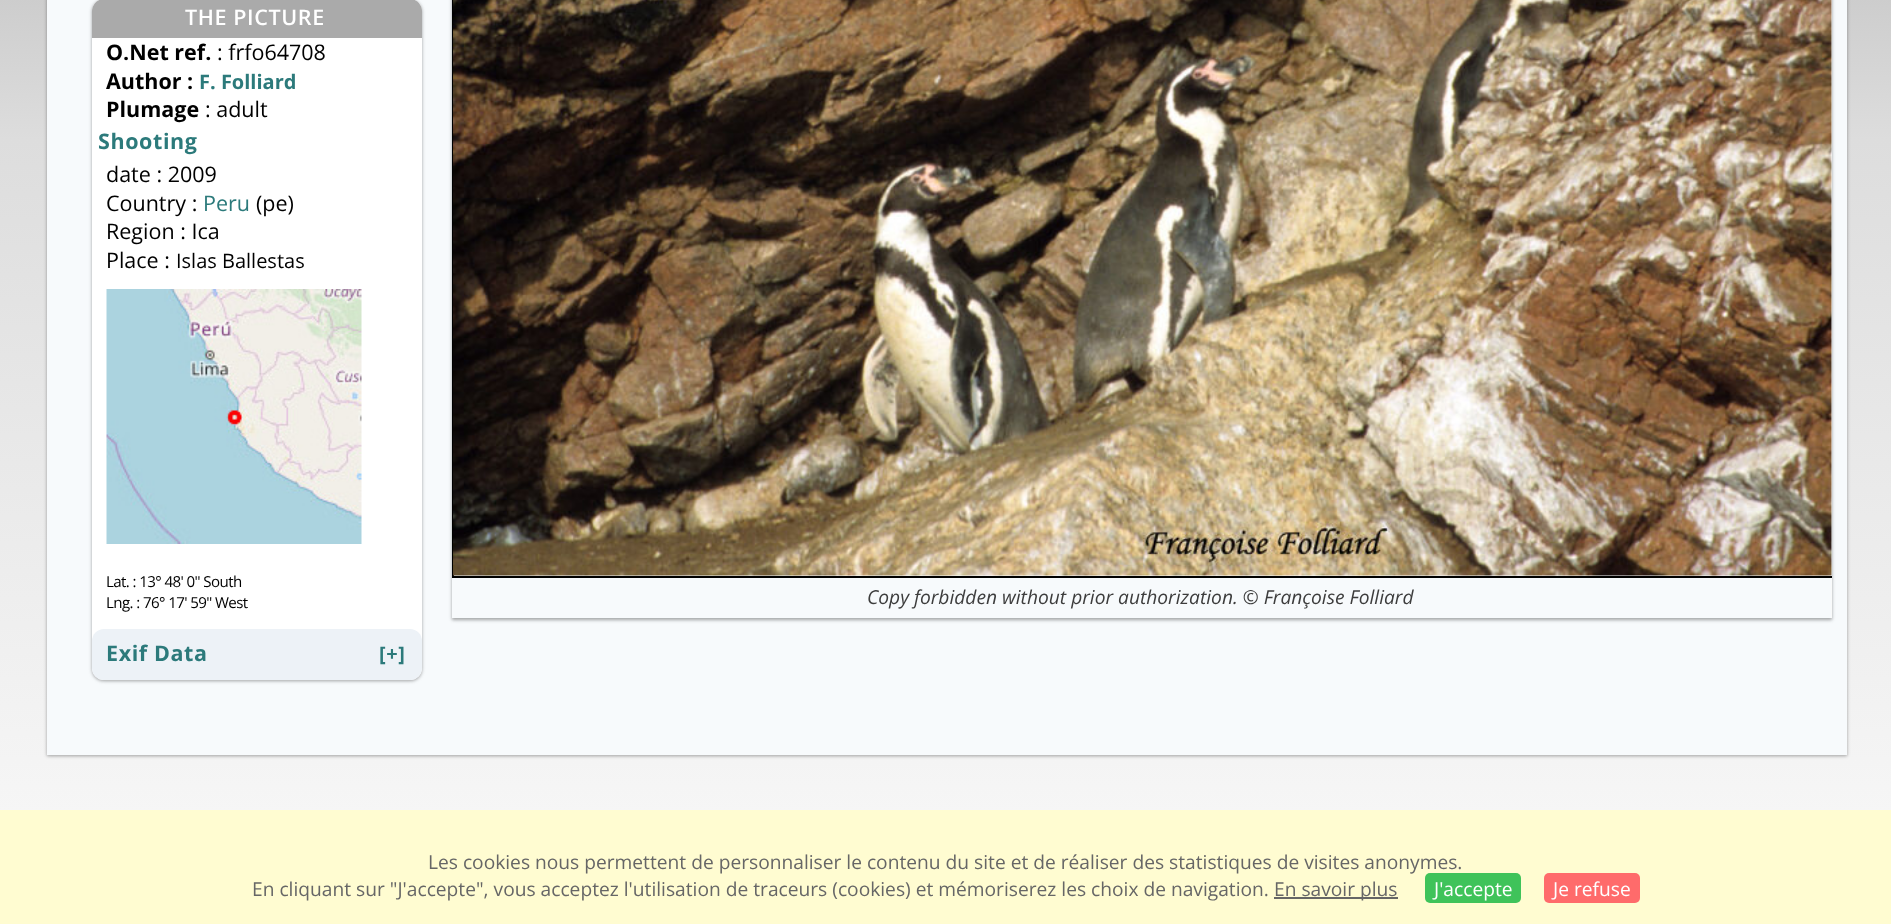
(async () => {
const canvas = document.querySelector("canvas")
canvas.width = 1891
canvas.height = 924
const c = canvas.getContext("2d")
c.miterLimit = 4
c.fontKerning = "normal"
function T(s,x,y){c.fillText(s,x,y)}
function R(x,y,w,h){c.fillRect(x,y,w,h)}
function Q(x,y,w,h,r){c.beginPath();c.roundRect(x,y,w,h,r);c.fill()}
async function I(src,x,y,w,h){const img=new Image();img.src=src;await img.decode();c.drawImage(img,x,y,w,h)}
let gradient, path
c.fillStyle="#fff"
R(0,0,1891,924)
gradient = c.createLinearGradient(946,-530,946,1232)
gradient.addColorStop(0,"#bbb")
gradient.addColorStop(.21,"#bbb")
gradient.addColorStop(.38,"#ddd")
gradient.addColorStop(.9,"#fff")
gradient.addColorStop(1,"#fff")
c.fillStyle = gradient
R(0,0,1891,810)
c.fillStyle="#0000003d"
c.filter="blur(1.5px)"
c.beginPath()
c.rect(47,-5,1800,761)
c.fill()
c.filter="none"
c.fillStyle="#0000001f"
c.filter="blur(2px)"
c.beginPath()
c.rect(47,-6,1800,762)
c.fill()
c.filter="none"
c.fillStyle="#f7fafc"
R(47,0,1800,755)
c.fillStyle="#0000003d"
c.filter="blur(1.5px)"
c.beginPath()
c.roundRect(92,0,330,681,12)
c.fill()
c.filter="none"
c.fillStyle="#0000001f"
c.filter="blur(2px)"
c.beginPath()
c.roundRect(92,0,330,681,12)
c.fill()
c.filter="none"
c.fillStyle="#fff"
Q(92,-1,330,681,12)
c.fillStyle="#aaa"
path = new Path2D("M104-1h306c6.5 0 12 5.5 12 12v27h-330v-27c0-6.5 5.5-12 12-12z")
c.fill(path)
c.letterSpacing="0.6px"
c.font="600 21.5px Open Sans"
c.fillStyle="#fff"
T("THE PICTURE",185,25)
c.letterSpacing="0px"
c.font="bold 21.5px Open Sans"
c.fillStyle="#000"
T("O.Net ref.",106,60)
c.font="21.5px Open Sans"
T(": frfo64708",217,60)
c.font="bold 21.5px Open Sans"
T("Author :",106,89)
c.font="bold 20px Open Sans"
c.fillStyle="#2c7a7b"
T("F. Folliard",199,89)
c.font="bold 21.5px Open Sans"
c.fillStyle="#000"
T("Plumage",106,117)
c.font="21.5px Open Sans"
T(": adult",205,117)
c.letterSpacing="0.6px"
c.font="bold 21.5px Open Sans"
c.fillStyle="#2c7a7b"
T("Shooting",98,149)
c.letterSpacing="0px"
c.font="21.5px Open Sans"
c.fillStyle="#000"
T("date : 2009",106,182)
T("Country :",106,211)
c.fillStyle="#2c7a7b"
T("Peru",203,211)
c.fillStyle="#000"
T("(pe)",256,211)
T("Region : Ica",106,239)
T("Place :",106,268)
c.font="20px Open Sans"
T("Islas Ballestas",176,268)
await I("1.png",106,289,256,255)
c.letterSpacing="-0.6px"
c.font="15.1px Open Sans"
T("Lat. : 13° 48' 0'' South",106,587)
T("Lng. : 76° 17' 59'' West",106,608)
c.fillStyle="#edf2f7"
Q(92,629,330,51,12)
c.letterSpacing="0.6px"
c.font="bold 21.5px Open Sans"
c.fillStyle="#2c7a7b"
T("Exif Data",106,661)
c.font="bold 20px Open Sans"
T("[+]",379,661)
c.save()
path = new Path2D("M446 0h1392v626h-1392zm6-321h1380v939h-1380z")
c.clip(path,"evenodd")
c.fillStyle="#0000003d"
c.filter="blur(1.5px)"
c.beginPath()
c.rect(452,-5,1380,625)
c.fill()
c.filter="none"
c.restore()
c.save()
path = new Path2D("M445 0h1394v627h-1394zm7-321h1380v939h-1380z")
c.clip(path,"evenodd")
c.fillStyle="#0000001f"
c.filter="blur(2px)"
c.beginPath()
c.rect(452,-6,1380,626)
c.fill()
c.filter="none"
c.restore()
c.save()
c.beginPath()
c.rect(452,0,1380,618)
c.clip()
c.strokeStyle="#000"
c.lineWidth=2
c.strokeRect(453,-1,1381,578)
c.restore()
await I("2.png",453,0,1379,576)
c.fillStyle="#fafafabf"
R(1831,578,1,40)
c.letterSpacing="0px"
c.font="italic 19.2px Open Sans"
c.fillStyle="#3d3d3d"
T("Copy forbidden without prior authorization. © Françoise Folliard",867,604)
c.fillStyle="#fffcd1"
R(0,810,1891,114)
c.font="19.2px Open Sans"
c.fillStyle="#666"
T("Les cookies nous permettent de personnaliser le contenu du site et de réaliser des statistiques de visites anonymes.",428,869)
T("En cliquant sur \"J'accepte\", vous acceptez l'utilisation de traceurs (cookies) et mémoriserez les choix de navigation.",252,896)
R(1274,897,124,2)
T("En savoir plus",1274,896)
c.fillStyle="#3fc35a"
Q(1425,873,96,30,5)
c.fillStyle="#fff"
T("J'accepte",1434,896)
c.fillStyle="#ff6b6b"
Q(1544,873,96,30,5)
c.fillStyle="#fff"
T("Je refuse",1553,896)
})()
